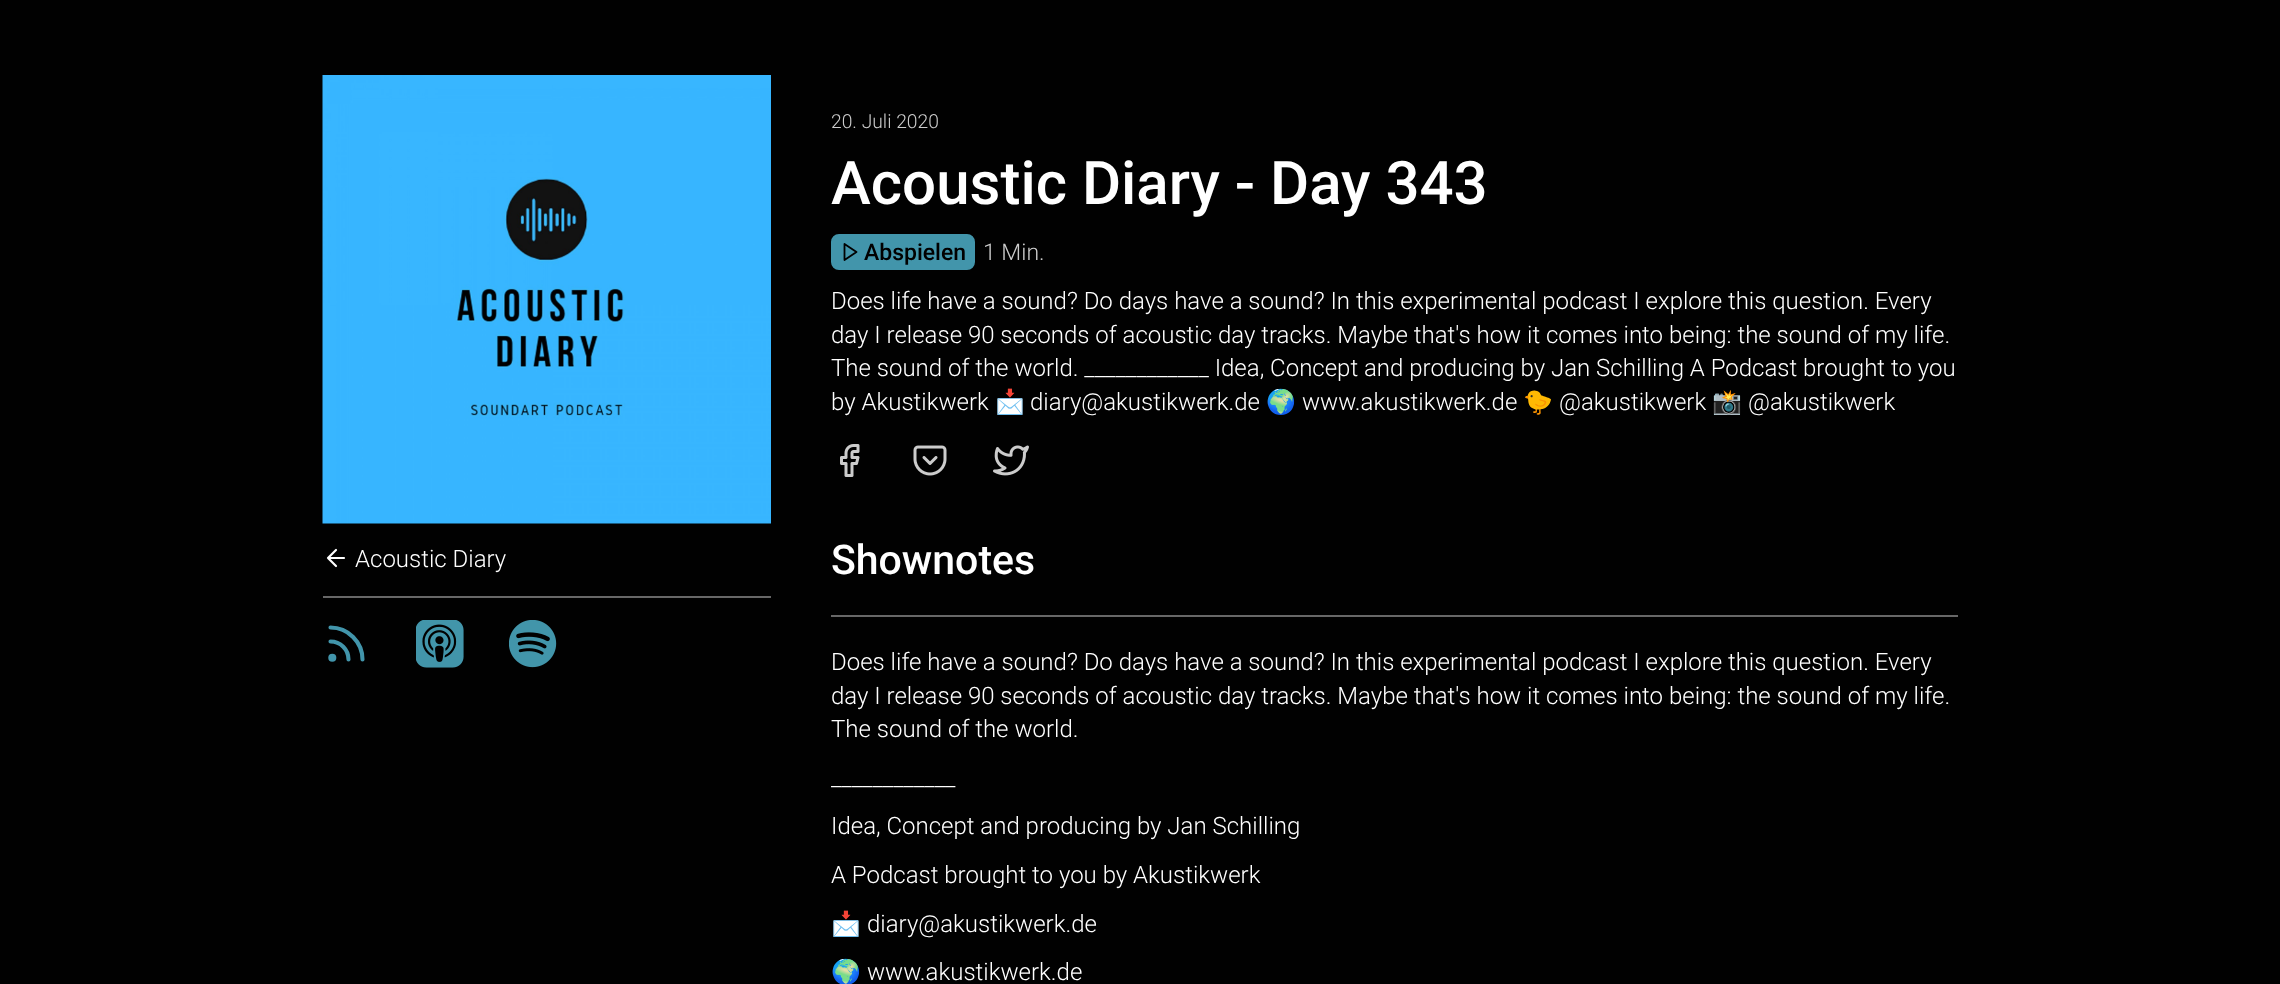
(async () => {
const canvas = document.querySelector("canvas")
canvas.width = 2280
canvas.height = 984
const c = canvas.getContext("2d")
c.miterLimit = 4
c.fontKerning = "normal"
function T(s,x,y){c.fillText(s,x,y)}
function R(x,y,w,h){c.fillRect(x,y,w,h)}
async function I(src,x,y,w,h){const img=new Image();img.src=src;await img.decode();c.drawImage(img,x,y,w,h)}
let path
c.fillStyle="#010101"
R(0,0,2280,984)
await I("1.png",322,75,449,449)
path = new Path2D("M344 558h-16m8 8l-8-8l8-8")
c.strokeStyle="#fff"
c.lineWidth=2.2
c.lineCap="round"
c.lineJoin="round"
c.stroke(path)
c.font="300 24px Roboto"
c.fillStyle="#fff"
T("Acoustic Diary",355,567)
c.fillStyle="#676767"
R(323,596,448,2)
path = new Path2D("M330.5 641.5c10 0 18 8 18 18m-18-32c17.5 0 32 14.5 32 32")
c.strokeStyle="#4295ab"
c.lineWidth=4.1
c.stroke(path)
c.beginPath()
c.arc(332.3,657.7,2,0,7)
c.stroke()
await I("2.png",416,620,48,48)
await I("3.png",509,620,48,48)
c.font="300 19.25px Roboto"
c.fillStyle="#ccc"
T("20. Juli 2020",831,128)
c.font="500 60px Roboto"
c.fillStyle="#fff"
T("Acoustic Diary - Day 343",831,204)
c.fillStyle="#4295ab"
c.beginPath()
c.roundRect(832,235,142,34,7)
c.fill()
c.lineWidth=2
c.lineJoin="miter"
c.stroke()
path = new Path2D("M844.5 244l12 8l-12 8z")
c.strokeStyle="#010101"
c.lineWidth=1.8
c.lineJoin="round"
c.stroke(path)
c.font="500 23px Roboto"
c.fillStyle="#010101"
T("Abspielen",864,260)
c.font="300 23px Roboto"
c.fillStyle="#ccc"
T("1 Min.",983,260)
c.font="300 24px Roboto"
c.fillStyle="#fff"
T("Does life have a sound? Do days have a sound? In this experimental podcast I explore this question. Every",831,309)
T("day I release 90 seconds of acoustic day tracks. Maybe that's how it comes into being: the sound of my life.",831,343)
T("The sound of the world. ____________ Idea, Concept and producing by Jan Schilling A Podcast brought to you",831,376)
T("by Akustikwerk",831,410)
c.font="24px Noto Color Emoji"
T("📩",995,410)
c.font="300 24px Roboto"
T("diary@akustikwerk.de",1030,410)
c.font="24px Noto Color Emoji"
T("🌍",1266,410)
c.font="300 24px Roboto"
T("www.akustikwerk.de",1302,410)
c.font="24px Noto Color Emoji"
T("🐤",1523,410)
c.font="300 24px Roboto"
T("@akustikwerk",1559,410)
c.font="24px Noto Color Emoji"
T("📸",1712,410)
c.font="300 24px Roboto"
T("@akustikwerk",1748,410)
await I("4.png",840,444,20,33)
await I("5.png",913,445,34,31)
await I("6.png",993,445,36,31)
c.fillStyle="#676767"
R(831,615,1127,2)
c.font="500 41px Roboto"
c.fillStyle="#fff"
T("Shownotes",831,574)
c.font="300 24px Roboto"
T("Does life have a sound? Do days have a sound? In this experimental podcast I explore this question. Every",831,670)
T("day I release 90 seconds of acoustic day tracks. Maybe that's how it comes into being: the sound of my life.",831,704)
T("The sound of the world.",831,737)
T("____________",831,786)
T("Idea, Concept and producing by Jan Schilling",831,834)
T("A Podcast brought to you by Akustikwerk",831,883)
c.font="24px Noto Color Emoji"
T("📩",831,932)
c.font="300 24px Roboto"
T("diary@akustikwerk.de",867,932)
c.font="24px Noto Color Emoji"
T("🌍",831,980)
c.font="300 24px Roboto"
T("www.akustikwerk.de",867,980)
})()
